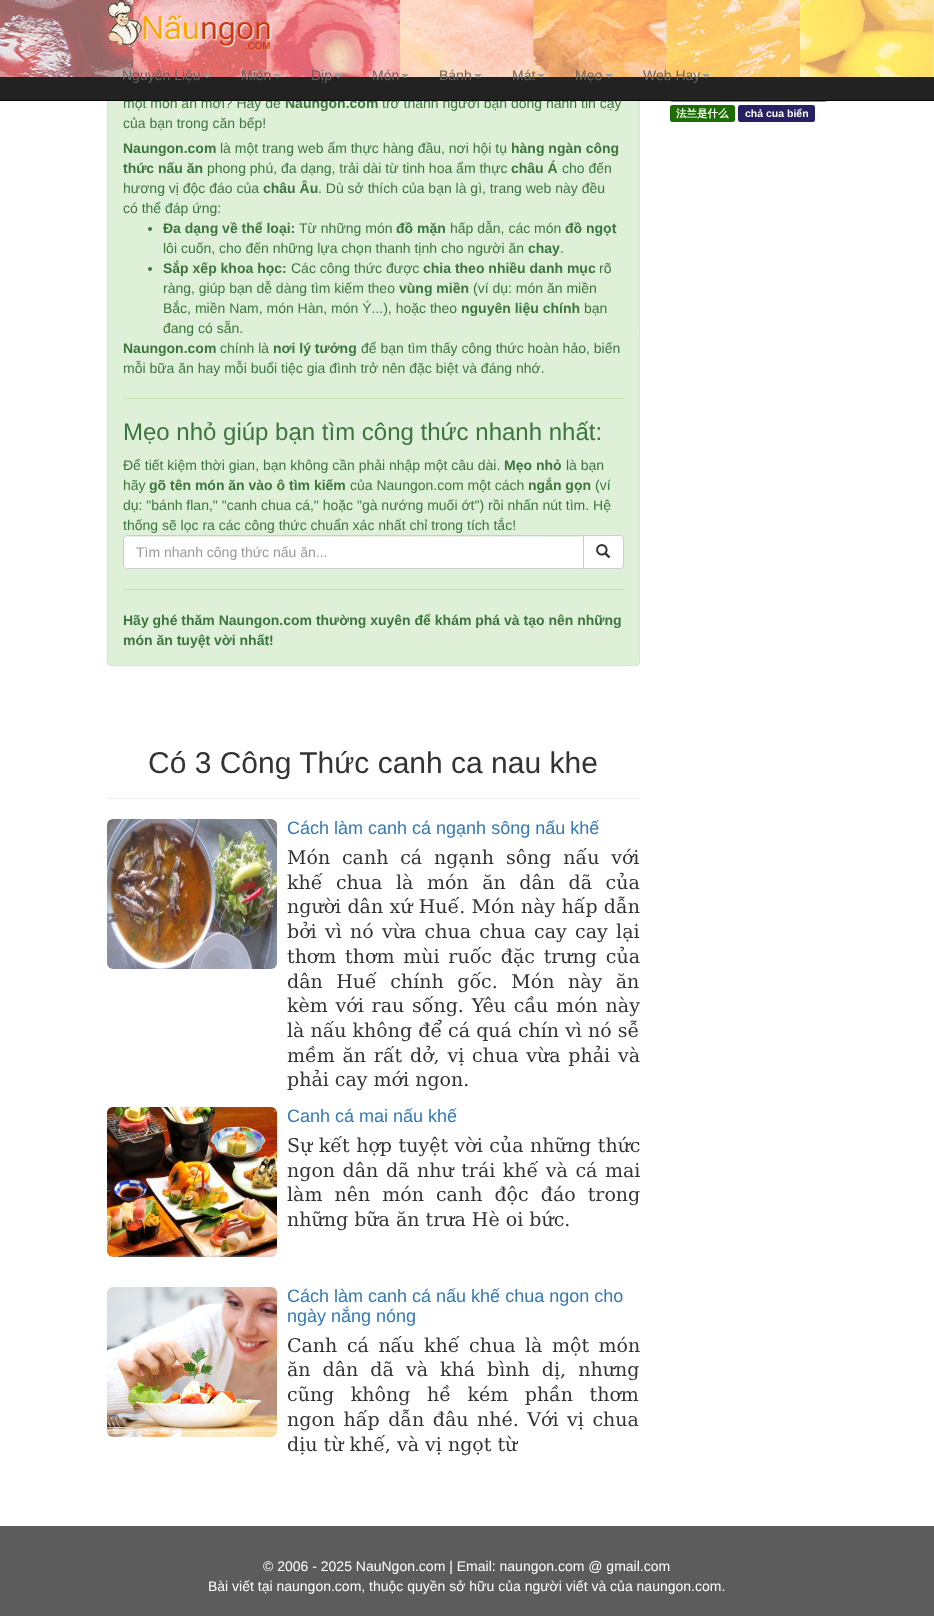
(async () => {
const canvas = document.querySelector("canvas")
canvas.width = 934
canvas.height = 1616
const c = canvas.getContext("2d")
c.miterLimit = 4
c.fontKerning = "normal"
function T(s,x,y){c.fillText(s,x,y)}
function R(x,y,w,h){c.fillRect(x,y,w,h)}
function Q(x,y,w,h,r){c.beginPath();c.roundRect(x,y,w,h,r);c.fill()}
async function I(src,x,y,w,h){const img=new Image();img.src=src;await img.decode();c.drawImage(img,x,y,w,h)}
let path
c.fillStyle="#fff"
R(0,0,934,1616)
c.fillStyle="#dff0d8"
c.beginPath()
c.roundRect(107.5,-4.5,532,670,3.5)
c.fill()
c.strokeStyle="#d6e9c6"
c.stroke()
c.font="14px Liberation Sans"
c.fillStyle="#3c763d"
T("một món ăn mới? Hãy để",123,108)
c.font="bold 14px Liberation Sans"
T("Naungon.com",285,108)
c.font="14px Liberation Sans"
T("trở thành người bạn đồng hành tin cậy",382,108)
c.fillStyle="#66b430"
Q(670,85,157,17,2.5)
c.fillStyle="#222"
R(0,77,934,23)
await I("1.png",0,0,934,77)
c.fillStyle="#080808"
R(0,100,934,1)
await I("2.png",107,0,165,50)
c.fillStyle="#646464"
T("Nguyên Liệu",122,80)
c.fillStyle="#9d9d9d"
path = new Path2D("M203 74h8l-4 4z")
c.fill(path)
c.fillStyle="#646464"
T("Miền",241,80)
c.fillStyle="#9d9d9d"
path = new Path2D("M273 74h8l-4 4z")
c.fill(path)
c.fillStyle="#646464"
T("Dịp",311,80)
c.fillStyle="#9d9d9d"
path = new Path2D("M334 74h8l-4 4z")
c.fill(path)
c.fillStyle="#646464"
T("Món",372,80)
c.fillStyle="#9d9d9d"
path = new Path2D("M401 74h8l-4 4z")
c.fill(path)
c.fillStyle="#646464"
T("Bánh",439,80)
c.fillStyle="#9d9d9d"
path = new Path2D("M474 74h8l-4 4z")
c.fill(path)
c.fillStyle="#646464"
T("Mát",512,80)
c.fillStyle="#9d9d9d"
path = new Path2D("M537 74h8l-4 4z")
c.fill(path)
c.fillStyle="#646464"
T("Mẹo",575,80)
c.fillStyle="#9d9d9d"
path = new Path2D("M605 74h8l-4 4z")
c.fill(path)
c.fillStyle="#646464"
T("Web Hay",643,80)
c.fillStyle="#9d9d9d"
path = new Path2D("M702 74h8l-4 4z")
c.fill(path)
c.fillStyle="#3c763d"
T("của bạn trong căn bếp!",123,128)
c.font="bold 14px Liberation Sans"
T("Naungon.com",123,153)
c.font="14px Liberation Sans"
T("là một trang web ẩm thực hàng đầu, nơi hội tụ",220,153)
c.font="bold 14px Liberation Sans"
T("hàng ngàn công",511,153)
T("thức nấu ăn",123,173)
c.font="14px Liberation Sans"
T("phong phú, đa dạng, trải dài từ tinh hoa ẩm thực",207,173)
c.font="bold 14px Liberation Sans"
T("châu Á",511,173)
c.font="14px Liberation Sans"
T("cho đến",562,173)
T("hương vị độc đáo của",123,193)
c.font="bold 14px Liberation Sans"
T("châu Âu",263,193)
c.font="14px Liberation Sans"
T(". Dù sở thích của bạn là gì, trang web này đều",318,193)
T("có thể đáp ứng:",123,213)
c.beginPath()
c.arc(150,229,2,0,7)
c.fill()
c.font="bold 14px Liberation Sans"
T("Đa dạng về thể loại:",163,233)
c.font="14px Liberation Sans"
T("Từ những món",299,233)
c.font="bold 14px Liberation Sans"
T("đồ mặn",396,233)
c.font="14px Liberation Sans"
T("hấp dẫn, các món",450,233)
c.font="bold 14px Liberation Sans"
T("đồ ngọt",565,233)
c.font="14px Liberation Sans"
T("lôi cuốn, cho đến những lựa chọn thanh tịnh cho người ăn",163,253)
c.font="bold 14px Liberation Sans"
T("chay",528,253)
c.font="14px Liberation Sans"
T(".",560,253)
c.beginPath()
c.arc(150,269,2,0,7)
c.fill()
c.font="bold 14px Liberation Sans"
T("Sắp xếp khoa học:",163,273)
c.font="14px Liberation Sans"
T("Các công thức được",291,273)
c.font="bold 14px Liberation Sans"
T("chia theo nhiều danh mục",423,273)
c.font="14px Liberation Sans"
T("rõ",599,273)
T("ràng, giúp bạn dễ dàng tìm kiếm theo",163,293)
c.font="bold 14px Liberation Sans"
T("vùng miền",399,293)
c.font="14px Liberation Sans"
T("(ví dụ: món ăn miền",473,293)
T("Bắc, miền Nam, món Hàn, món Ý...), hoặc theo",163,313)
c.font="bold 14px Liberation Sans"
T("nguyên liệu chính",461,313)
c.font="14px Liberation Sans"
T("bạn",584,313)
T("đang có sẵn.",163,333)
c.font="bold 14px Liberation Sans"
T("Naungon.com",123,353)
c.font="14px Liberation Sans"
T("chính là",220,353)
c.font="bold 14px Liberation Sans"
T("nơi lý tưởng",273,353)
c.font="14px Liberation Sans"
T("để bạn tìm thấy công thức hoàn hảo, biến",361,353)
T("mỗi bữa ăn hay mỗi buổi tiệc gia đình trở nên đặc biệt và đáng nhớ.",123,373)
c.fillStyle="#c9e2b3"
R(123,398,501,1)
c.font="24px Liberation Sans"
c.fillStyle="#3c763d"
T("Mẹo nhỏ giúp bạn tìm công thức nhanh nhất:",123,440)
c.font="14px Liberation Sans"
T("Để tiết kiệm thời gian, bạn không cần phải nhập một câu dài.",123,470)
c.font="bold 14px Liberation Sans"
T("Mẹo nhỏ",504,470)
c.font="14px Liberation Sans"
T("là bạn",566,470)
T("hãy",123,490)
c.font="bold 14px Liberation Sans"
T("gõ tên món ăn vào ô tìm kiếm",149,490)
c.font="14px Liberation Sans"
T("của Naungon.com một cách",350,490)
c.font="bold 14px Liberation Sans"
T("ngắn gọn",528,490)
c.font="14px Liberation Sans"
T("(ví",595,490)
T("dụ: \"bánh flan,\" \"canh chua cá,\" hoặc \"gà nướng muối ớt\") rồi nhấn nút tìm. Hệ",123,510)
T("thống sẽ lọc ra các công thức chuẩn xác nhất chỉ trong tích tắc!",123,530)
c.fillStyle="#fff"
c.beginPath()
c.roundRect(123,535,461,34,[4,0,0,4])
c.fill()
c.fillStyle="#ececec"
path = new Path2D("M127 537h456v-1h-456c-2 0-3 2-3 4c0-2 1-3 3-3z")
c.fill(path)
c.beginPath()
c.roundRect(123.5,535.5,460,33,[3.5,0,0,3.5])
c.strokeStyle="#ccc"
c.stroke()
c.fillStyle="#999"
T("Tìm nhanh công thức nấu ăn...",136,557)
c.fillStyle="#fff"
c.beginPath()
c.roundRect(583.5,535.5,40,33,[0,3.5,3.5,0])
c.fill()
c.stroke()
await I("3.png",596,544,15,14)
c.fillStyle="#c9e2b3"
R(123,589,501,1)
c.font="bold 14px Liberation Sans"
c.fillStyle="#3c763d"
T("Hãy ghé thăm Naungon.com thường xuyên để khám phá và tạo nên những",123,625)
T("món ăn tuyệt vời nhất!",123,645)
c.fillStyle="#eee"
R(107,798,533,1)
c.font="30px Liberation Sans"
c.fillStyle="#333"
T("Có 3 Công Thức canh ca nau khe",148,773)
await I("4.png",107,819,170,150)
c.font="18px Liberation Sans"
c.fillStyle="#337ab7"
T("Cách làm canh cá ngạnh sông nấu khế",287,834)
c.wordSpacing="5.75px"
c.font="19px DejaVu Serif"
c.fillStyle="#333"
T("Món canh cá ngạnh sông nấu với",287,864)
c.wordSpacing="7.5px"
T("khế chua là món ăn dân dã của",287,889)
c.wordSpacing="0.25px"
T("người dân xứ Huế. Món này hấp dẫn",287,913)
c.wordSpacing="2.25px"
T("bởi vì nó vừa chua chua cay cay lại",287,938)
c.wordSpacing="2.75px"
T("thơm thơm mùi ruốc đặc trưng của",287,963)
c.wordSpacing="7.5px"
T("dân Huế chính gốc. Món này ăn",287,988)
c.wordSpacing="1.75px"
T("kèm với rau sống. Yêu cầu món này",287,1012)
c.wordSpacing="0px"
T("là nấu không để cá quá chín vì nó sễ",287,1037)
c.wordSpacing="1.75px"
T("mềm ăn rất dở, vị chua vừa phải và",287,1062)
c.wordSpacing="0px"
T("phải cay mới ngon.",287,1086)
await I("5.png",107,1107,170,150)
c.font="18px Liberation Sans"
c.fillStyle="#337ab7"
T("Canh cá mai nấu khế",287,1122)
c.wordSpacing="0.5px"
c.font="19px DejaVu Serif"
c.fillStyle="#333"
T("Sự kết hợp tuyệt vời của những thức",287,1152)
c.wordSpacing="1.5px"
T("ngon dân dã như trái khế và cá mai",287,1177)
c.wordSpacing="6px"
T("làm nên món canh độc đáo trong",287,1201)
c.wordSpacing="0px"
T("những bữa ăn trưa Hè oi bức.",287,1226)
await I("6.png",107,1287,170,150)
c.font="18px Liberation Sans"
c.fillStyle="#337ab7"
T("Cách làm canh cá nấu khế chua ngon cho",287,1302)
T("ngày nắng nóng",287,1322)
c.wordSpacing="3.5px"
c.font="19px DejaVu Serif"
c.fillStyle="#333"
T("Canh cá nấu khế chua là một món",287,1352)
c.wordSpacing="6px"
T("ăn dân dã và khá bình dị, nhưng",287,1376)
c.wordSpacing="10.5px"
T("cũng không hề kém phần thơm",287,1401)
c.wordSpacing="2.5px"
T("ngon hấp dẫn đâu nhé. Với vị chua",287,1426)
c.wordSpacing="0px"
T("dịu từ khế, và vị ngọt từ",287,1451)
c.fillStyle="#1d6d05"
Q(670,105,65,17,2.5)
c.font="bold 10.5px WenQuanYi Zen Hei"
c.fillStyle="#fff"
T("法兰是什么",676,117)
c.fillStyle="#272163"
Q(738,105,77,17,2.5)
c.font="bold 10.5px Liberation Sans"
c.fillStyle="#fff"
T("chả cua biển",745,117)
c.fillStyle="#5c5c5c"
R(0,1526,934,90)
c.font="14px Liberation Sans"
c.fillStyle="#fff"
T("© 2006 - 2025 NauNgon.com | Email: naungon.com @ gmail.com",263,1571)
T("Bài viết tại naungon.com, thuộc quyền sở hữu của người viết và của naungon.com.",208,1591)
})()
